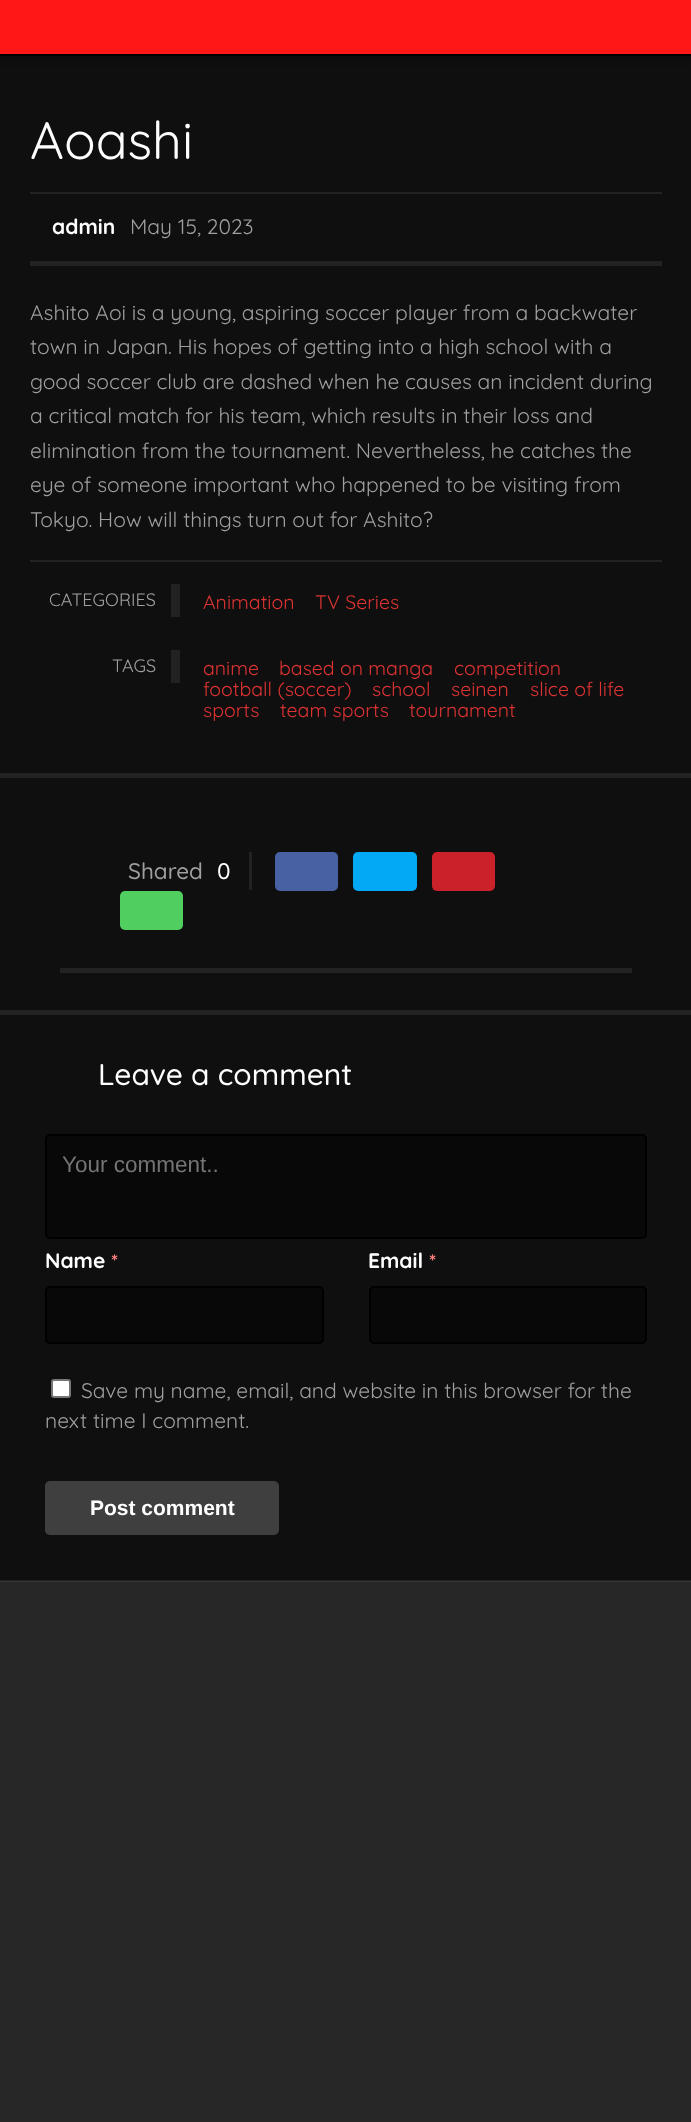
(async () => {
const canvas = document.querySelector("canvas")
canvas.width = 691
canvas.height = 2122
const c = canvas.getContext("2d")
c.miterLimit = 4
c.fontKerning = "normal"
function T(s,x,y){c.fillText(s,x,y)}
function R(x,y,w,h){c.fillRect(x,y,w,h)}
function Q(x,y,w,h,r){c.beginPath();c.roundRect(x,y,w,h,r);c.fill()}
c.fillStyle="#272727"
R(0,0,691,2122)
c.fillStyle="#363636"
R(0,1581,691,1)
c.fillStyle="#0f0f0f"
R(0,56,691,1524)
c.fillStyle="#202020"
R(0,1580,691,1)
c.fillStyle="#00000066"
c.filter="blur(4px)"
c.beginPath()
c.rect(0,2,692,55)
c.fill()
c.filter="none"
c.fillStyle="#ff1717"
R(0,0,691,54)
c.fillStyle="#000"
R(0,54,691,2)
c.fillStyle="#222"
R(0,773,691,5)
R(30,192,632,2)
c.font="52.5px Quicksand"
c.fillStyle="#fff"
T("Aoashi",30,159)
c.fillStyle="#222"
R(30,261,632,5)
c.font="bold 21px Quicksand"
c.fillStyle="#fff"
T("admin",52,234)
c.font="21px Quicksand"
c.fillStyle="#9f9f9f"
T("May 15, 2023",130,234)
c.fillStyle="#222"
R(30,560,632,2)
c.fillStyle="#9f9f9f"
T("Ashito Aoi is a young, aspiring soccer player from a backwater",30,320)
T("town in Japan. His hopes of getting into a high school with a",30,354)
T("good soccer club are dashed when he causes an incident during",30,389)
T("a critical match for his team, which results in their loss and",30,423)
T("elimination from the tournament. Nevertheless, he catches the",30,458)
T("eye of someone important who happened to be visiting from",30,492)
T("Tokyo. How will things turn out for Ashito?",30,527)
c.fillStyle="#222"
R(171,584,9,33)
c.font="18px Quicksand"
c.fillStyle="#9f9f9f"
T("CATEGORIES",49,606)
c.font="19.5px Quicksand"
c.fillStyle="#d33"
T("Animation",203,609)
T("TV Series",315,609)
c.fillStyle="#222"
R(171,650,9,33)
c.font="18px Quicksand"
c.fillStyle="#9f9f9f"
T("TAGS",112,672)
c.font="19.5px Quicksand"
c.fillStyle="#d33"
T("anime",203,675)
T("based on manga",279,675)
T("competition",454,675)
T("football (soccer)",203,696)
T("school",372,696)
T("seinen",451,696)
T("slice of life",530,696)
T("sports",203,717)
T("team sports",280,717)
T("tournament",409,717)
c.fillStyle="#222"
R(0,1010,691,5)
R(60,968,572,5)
R(249,852,3,38)
c.font="500 22.5px Quicksand"
c.fillStyle="#9f9f9f"
T("Shared",128,879)
c.fillStyle="#fff"
T("0",217,879)
c.fillStyle="#4861a3"
Q(275,852,63,39,5)
c.fillStyle="#03a9f4"
Q(353,852,64,39,5)
c.fillStyle="#ca212a"
Q(432,852,63,39,5)
c.fillStyle="#51ce60"
Q(120,891,63,39,5)
c.font="500 30px Quicksand"
c.fillStyle="#fff"
T("Leave a comment",98,1085)
c.fillStyle="#080808"
c.beginPath()
c.roundRect(46,1135,600,103,4)
c.fill()
c.strokeStyle="#000"
c.lineWidth=2
c.stroke()
c.font="22.5px Liberation Sans"
c.fillStyle="#757575"
T("Your comment..",62,1172)
c.font="bold 21px Quicksand"
c.fillStyle="#fff"
T("Name",45,1268)
c.font="bold 19.5px Quicksand"
c.fillStyle="#ff8181"
T("*",111,1268)
c.fillStyle="#080808"
c.beginPath()
c.roundRect(46,1287,277,56,4)
c.fill()
c.stroke()
c.font="bold 21px Quicksand"
c.fillStyle="#fff"
T("Email",368,1268)
c.font="bold 19.5px Quicksand"
c.fillStyle="#ff8181"
T("*",429,1268)
c.fillStyle="#080808"
c.beginPath()
c.roundRect(370,1287,276,56,4)
c.fill()
c.stroke()
c.fillStyle="#fff"
c.beginPath()
c.roundRect(52,1380,18,17,2)
c.fill()
c.strokeStyle="#767676"
c.stroke()
c.font="21px Quicksand"
c.fillStyle="#9f9f9f"
T("Save my name, email, and website in this browser for the",81,1398)
T("next time I comment.",45,1428)
c.fillStyle="#3f3f3f"
Q(45,1481,234,54,5)
c.font="bold 21px Liberation Sans"
c.fillStyle="#fff"
T("Post comment",90,1515)
})()
